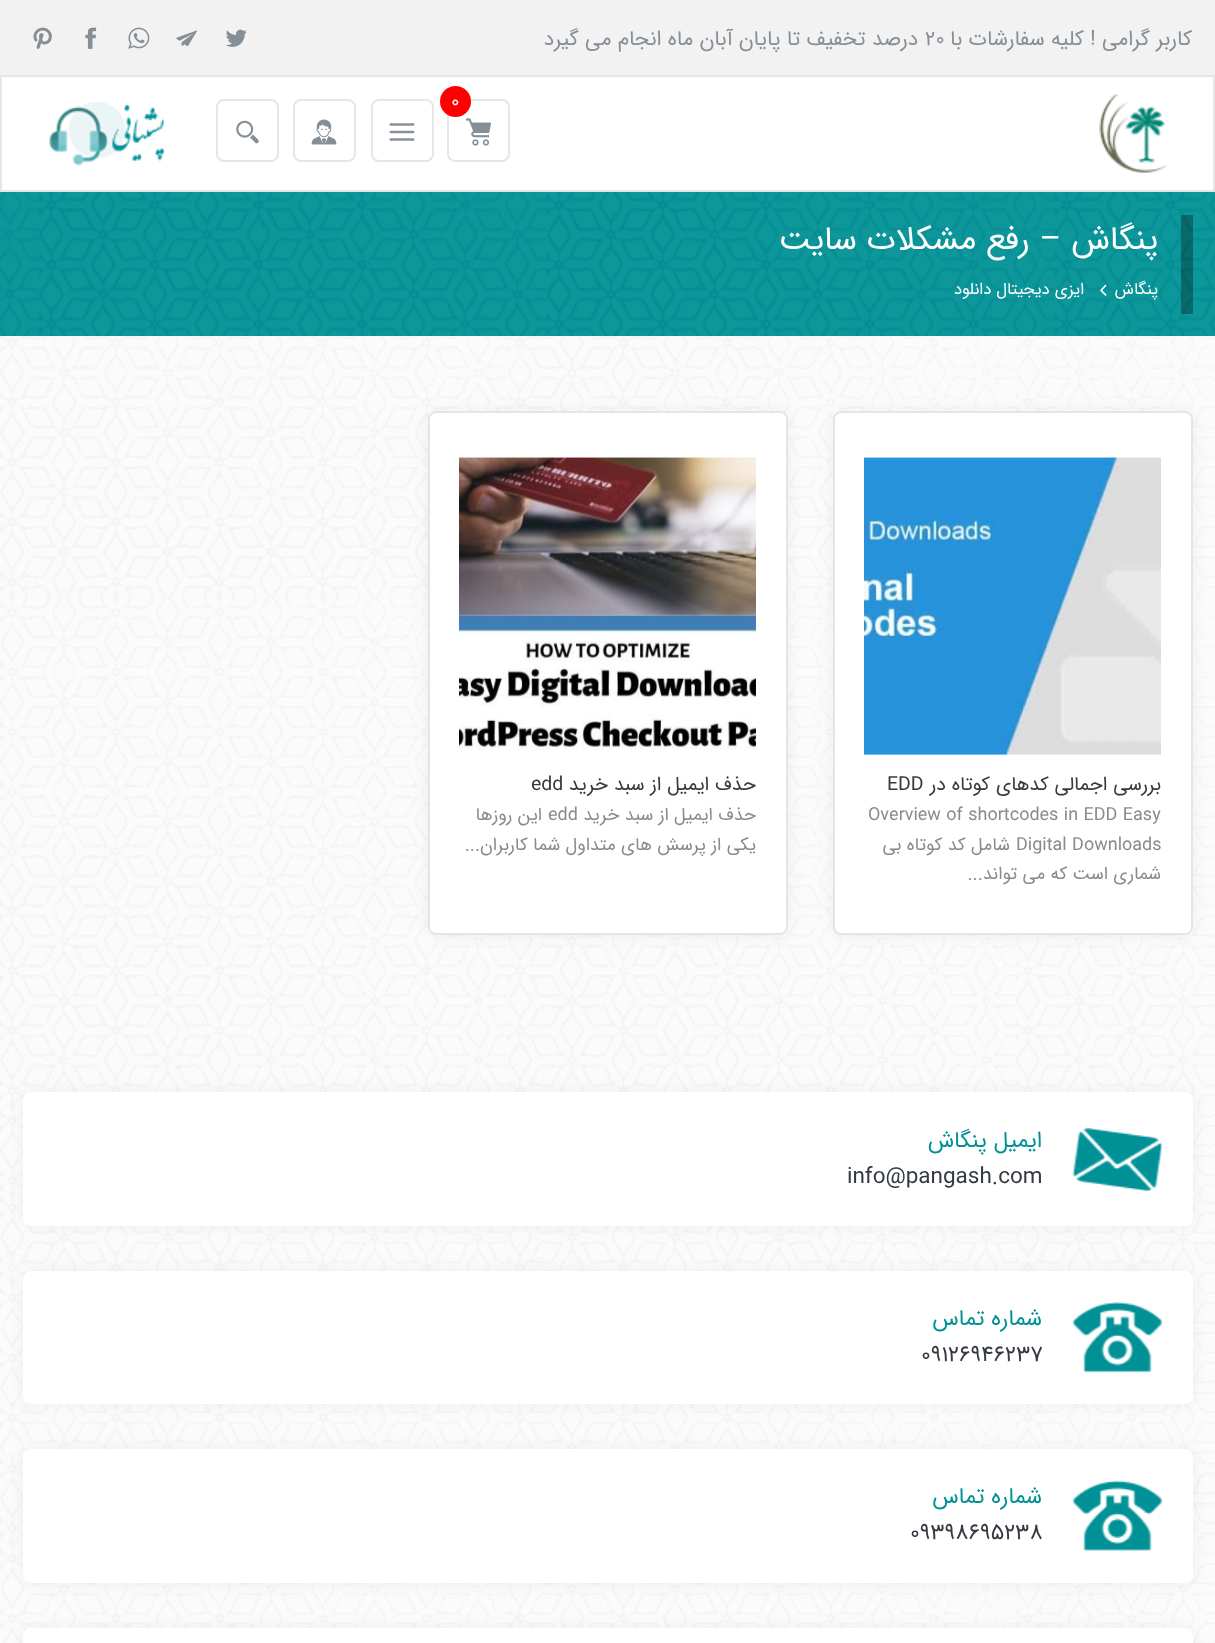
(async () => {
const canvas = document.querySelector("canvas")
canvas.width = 1215
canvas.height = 1643
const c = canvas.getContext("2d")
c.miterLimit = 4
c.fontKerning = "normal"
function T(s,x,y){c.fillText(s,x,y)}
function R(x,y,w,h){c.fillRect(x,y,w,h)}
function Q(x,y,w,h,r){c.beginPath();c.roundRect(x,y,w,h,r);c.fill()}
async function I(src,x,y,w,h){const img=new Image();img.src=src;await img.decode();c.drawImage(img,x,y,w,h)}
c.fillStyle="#fff"
R(0,0,1215,1643)
await I("1.png",0,336,1215,1307)
c.fillStyle="#f2f2f2"
R(0,0,1215,75)
c.direction="rtl"
c.font="21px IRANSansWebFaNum"
c.fillStyle="#868e96"
T("کاربر گرامی ! کلیه سفارشات با",1192,45)
c.direction="ltr"
T("20",925,45)
c.direction="rtl"
T("درصد تخفیف تا پایان",918,45)
T("آبان ماه انجام می گیرد",733,45)
await I("2.png",226,29,21,18)
await I("3.png",176,30,22,17)
await I("4.png",128,27,22,22)
await I("5.png",85,27,12,22)
await I("6.png",33,27,19,22)
c.strokeStyle="#e6e6e6"
c.lineWidth=2
c.strokeRect(1,76,1213,115)
await I("7.png",1099,94,68,79)
c.beginPath()
c.roundRect(448,100,61,61,7)
c.stroke()
c.fillStyle="#f00"
c.beginPath()
c.arc(455.5,101.5,15.5,0,7)
c.fill()
c.direction="ltr"
c.font="19.5px IRANSansWebFaNum"
c.fillStyle="#fff"
T("0",451,107)
await I("8.png",466,118,25,28)
c.beginPath()
c.roundRect(372,100,61,61,7)
c.stroke()
await I("9.png",389,123,26,18)
c.beginPath()
c.roundRect(294,100,61,61,7)
c.stroke()
await I("10.png",311,119,26,26)
c.beginPath()
c.roundRect(217,100,61,61,7)
c.stroke()
await I("11.png",236,120,23,24)
await I("12.png",49,102,117,64)
c.fillStyle="#009196"
R(0,192,1215,144)
await I("13.png",0,192,1215,144)
c.fillStyle="#0000004d"
R(1181,215,12,99)
c.direction="rtl"
c.font="33px IRANSansWebFaNum"
c.fillStyle="#fff"
T("پنگاش – رفع مشکلات سایت",1158,249)
c.font="16.5px IRANSansWebFaNum"
T("پنگاش",1158,294)
await I("14.png",1100,284,7,12)
T("ایزی دیجیتال دانلود",1084,294)
c.fillStyle="#0000000d"
c.filter="blur(7.5px)"
c.beginPath()
c.roundRect(833,411,360,524,8)
c.fill()
c.filter="none"
c.fillStyle="#fff"
Q(833,411,360,524,8)
c.beginPath()
c.roundRect(834,412,358,522,7)
c.strokeStyle="#0000001a"
c.stroke()
await I("15.png",864,457,297,298)
c.font="19.5px IRANSansWebFaNum"
c.fillStyle="#343a40"
T("بررسی اجمالی کدهای کوتاه در",1161,790)
c.direction="ltr"
T("EDD",887,790)
c.font="18px IRANSansWebFaNum"
c.fillStyle="#8c8989"
T("Overview of shortcodes in EDD Easy",868,820)
T("Digital Downloads",1016,850)
c.direction="rtl"
T("شامل کد کوتاه بی",1010,850)
T("شماری است که می تواند...",1161,879)
c.fillStyle="#0000000d"
c.filter="blur(7.5px)"
c.beginPath()
c.roundRect(428,411,360,524,8)
c.fill()
c.filter="none"
c.fillStyle="#fff"
Q(428,411,360,524,8)
c.beginPath()
c.roundRect(429,412,358,522,7)
c.stroke()
await I("16.png",459,457,297,293)
c.font="19.5px IRANSansWebFaNum"
c.fillStyle="#343a40"
T("حذف ایمیل از سبد خرید",756,790)
c.direction="ltr"
T("edd",531,790)
c.direction="rtl"
c.font="18px IRANSansWebFaNum"
c.fillStyle="#8c8989"
T("حذف ایمیل از سبد خرید",756,820)
c.direction="ltr"
T("edd",548,820)
c.direction="rtl"
T("این روزها",542,820)
T("یکی از پرسش های متداول شما کاربران...",756,850)
c.fillStyle="#0000000d"
c.filter="blur(7.5px)"
c.beginPath()
c.roundRect(23,1092,1170,134,8)
c.fill()
c.filter="none"
c.fillStyle="#fff"
Q(23,1092,1170,134,8)
await I("17.png",1072,1128,91,63)
c.font="22.5px IRANSansWebFaNum"
c.fillStyle="#009196"
T("ایمیل پنگاش",1042,1147)
c.direction="ltr"
c.fillStyle="#343a40"
T("info@pangash.com",847,1183)
c.fillStyle="#0000000d"
c.filter="blur(7.5px)"
c.beginPath()
c.roundRect(23,1271,1170,133,8)
c.fill()
c.filter="none"
c.fillStyle="#fff"
Q(23,1271,1170,133,8)
await I("18.png",1072,1302,91,71)
c.direction="rtl"
c.fillStyle="#009196"
T("شماره تماس",1042,1325)
c.direction="ltr"
c.fillStyle="#343a40"
T("09126946237",921,1361)
c.fillStyle="#0000000d"
c.filter="blur(7.5px)"
c.beginPath()
c.roundRect(23,1449,1170,134,8)
c.fill()
c.filter="none"
c.fillStyle="#fff"
Q(23,1449,1170,134,8)
await I("19.png",1072,1480,91,71)
c.direction="rtl"
c.fillStyle="#009196"
T("شماره تماس",1042,1503)
c.direction="ltr"
c.fillStyle="#343a40"
T("09398695238",910,1539)
c.fillStyle="#0000000d"
c.filter="blur(7.5px)"
c.beginPath()
c.roundRect(23,1628,1170,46,8)
c.fill()
c.filter="none"
c.fillStyle="#fff"
Q(23,1628,1170,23,8)
})()
